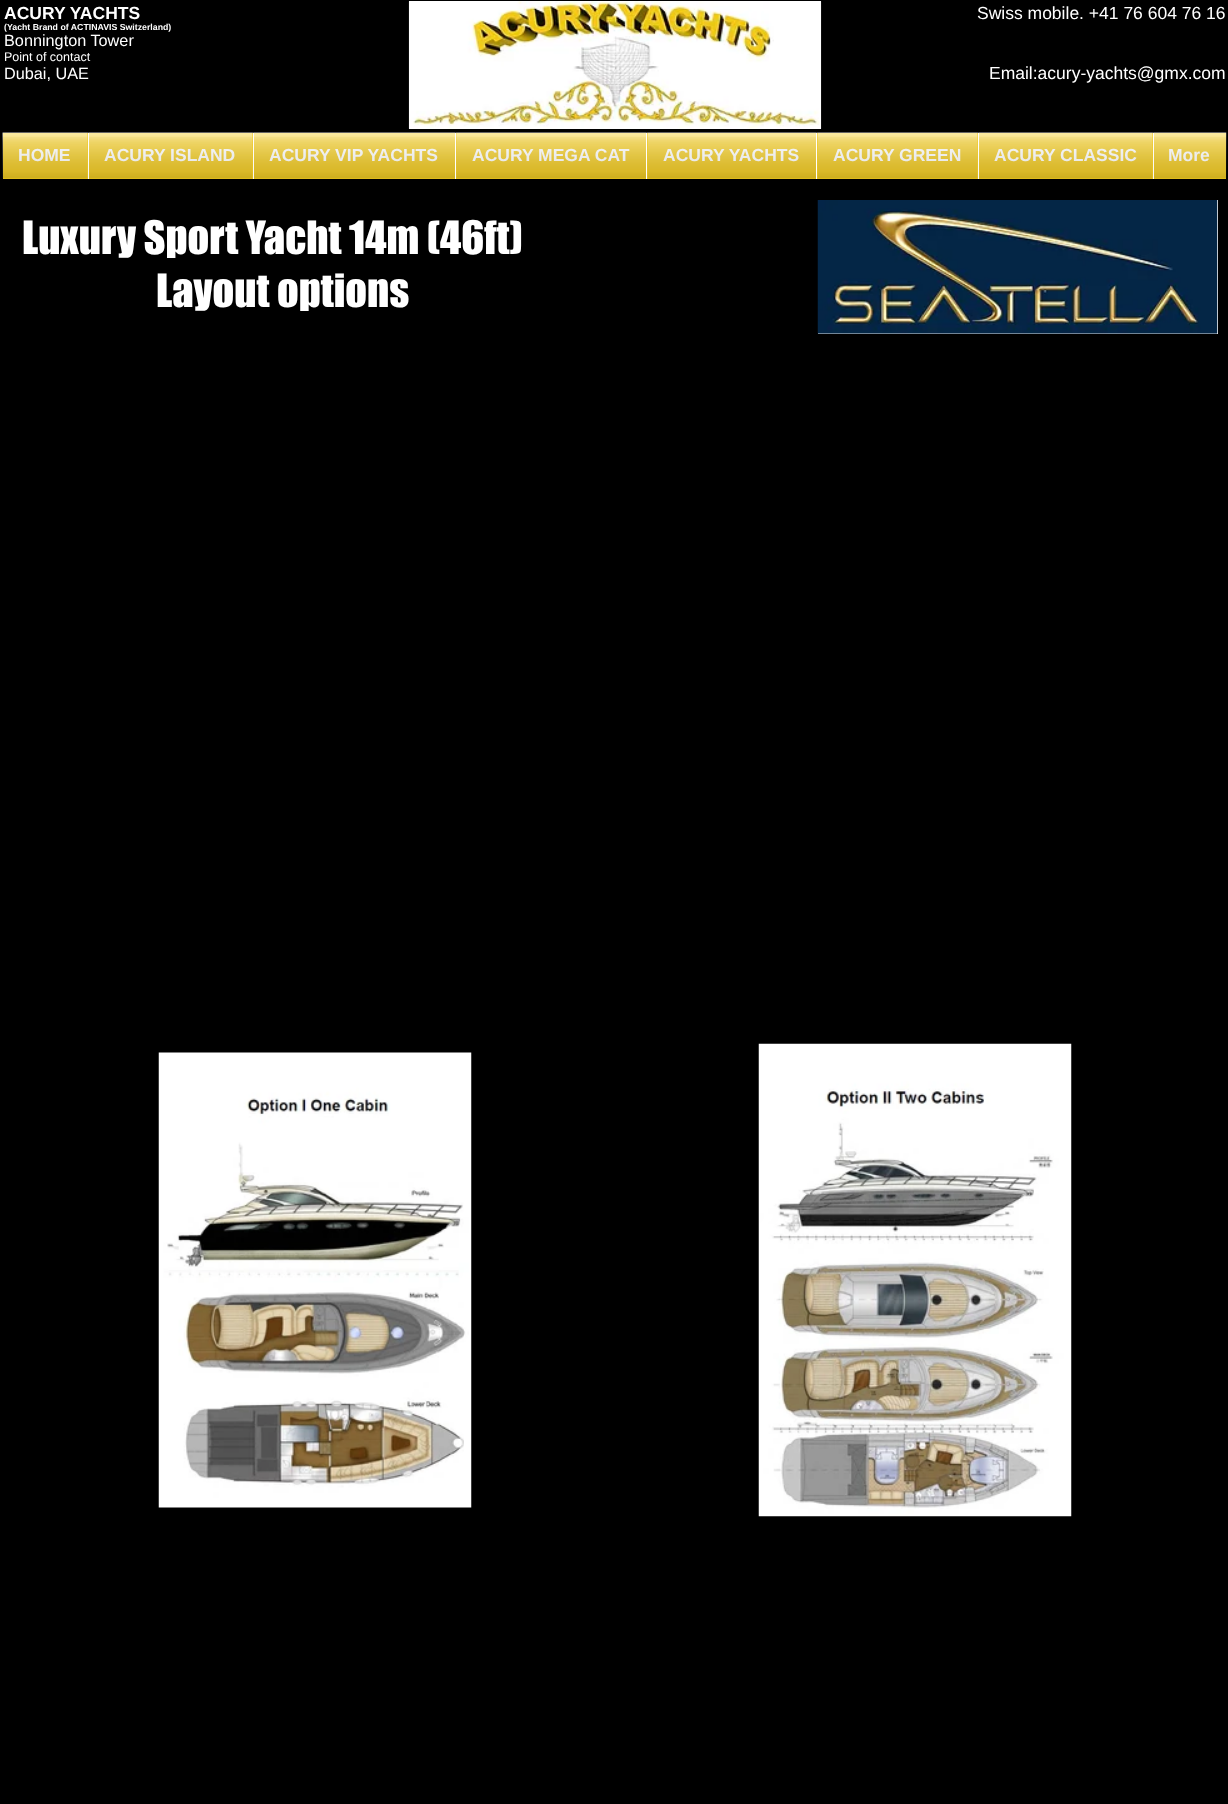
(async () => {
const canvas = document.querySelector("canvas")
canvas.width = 1228
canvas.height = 1804
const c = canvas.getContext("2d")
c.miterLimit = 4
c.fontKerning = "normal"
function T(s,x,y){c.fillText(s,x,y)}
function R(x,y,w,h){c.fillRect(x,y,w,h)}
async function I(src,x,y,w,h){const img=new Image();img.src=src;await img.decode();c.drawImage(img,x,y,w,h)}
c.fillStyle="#000"
R(0,0,1228,1804)
c.font="bold 17.5px Liberation Sans"
c.fillStyle="#fff"
T("ACURY YACHTS",4,19)
c.font="bold 8.75px Liberation Sans"
T("(Yacht Brand of ACTINAVIS Switzerland)",4,30)
c.font="16.25px Liberation Sans"
T("Bonnington Tower",4,46)
c.font="12.5px Liberation Sans"
T("Point of contact",4,61)
c.font="16.25px Liberation Sans"
T("Dubai, UAE",4,79)
R(409,1,412,128)
await I("1.png",408,1,414,128)
c.font="17.5px Liberation Sans"
T("Swiss mobile. +41 76 604 76 16",977,19)
T("Email:acury-yachts@gmx.com",989,79)
await I("2.png",2,132,1225,46)
c.fillStyle="#f2c917"
R(3,133,85,46)
c.font="bold 17.5px Liberation Sans"
c.fillStyle="#fff"
T("HOME",18,161)
await I("3.png",2,132,86,47)
await I("4.png",3,137,85,42)
c.fillStyle="#f2c917"
R(89,133,164,46)
c.fillStyle="#fff"
R(88,133,1,46)
T("ACURY ISLAND",104,161)
await I("5.png",88,132,165,47)
await I("6.png",88,137,165,42)
c.fillStyle="#f2c917"
R(254,133,201,46)
c.fillStyle="#fff"
R(253,133,1,46)
T("ACURY VIP YACHTS",269,161)
await I("7.png",253,132,202,47)
await I("8.png",253,137,202,42)
c.fillStyle="#f2c917"
R(456,133,190,46)
c.fillStyle="#fff"
R(455,133,1,46)
T("ACURY MEGA CAT",472,161)
await I("9.png",456,132,191,47)
await I("10.png",456,137,190,42)
c.fillStyle="#f2c917"
R(647,133,169,46)
c.fillStyle="#fff"
R(646,133,1,46)
T("ACURY YACHTS",663,161)
await I("11.png",647,132,170,47)
await I("12.png",647,137,169,42)
c.fillStyle="#f2c917"
R(817,133,161,46)
c.fillStyle="#fff"
R(816,133,1,46)
T("ACURY GREEN",833,161)
await I("13.png",817,132,161,47)
await I("14.png",817,137,161,42)
c.fillStyle="#f2c917"
R(979,133,174,46)
c.fillStyle="#fff"
R(978,133,1,46)
T("ACURY CLASSIC",994,161)
await I("15.png",978,132,175,47)
await I("16.png",978,137,175,42)
c.fillStyle="#f2c917"
R(1154,133,72,46)
c.fillStyle="#fff"
R(1153,133,1,46)
T("More",1168,161)
await I("17.png",1153,132,74,47)
await I("18.png",1153,137,73,42)
c.font="42.5px 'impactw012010'"
T("Luxury Sport Yacht 14m (46ft)",22,254)
R(818,200,400,134)
await I("19.png",817,200,401,134)
T("Layout options",156,307)
await I("20.png",158,1052,314,456)
await I("21.png",758,1043,314,474)
})()
